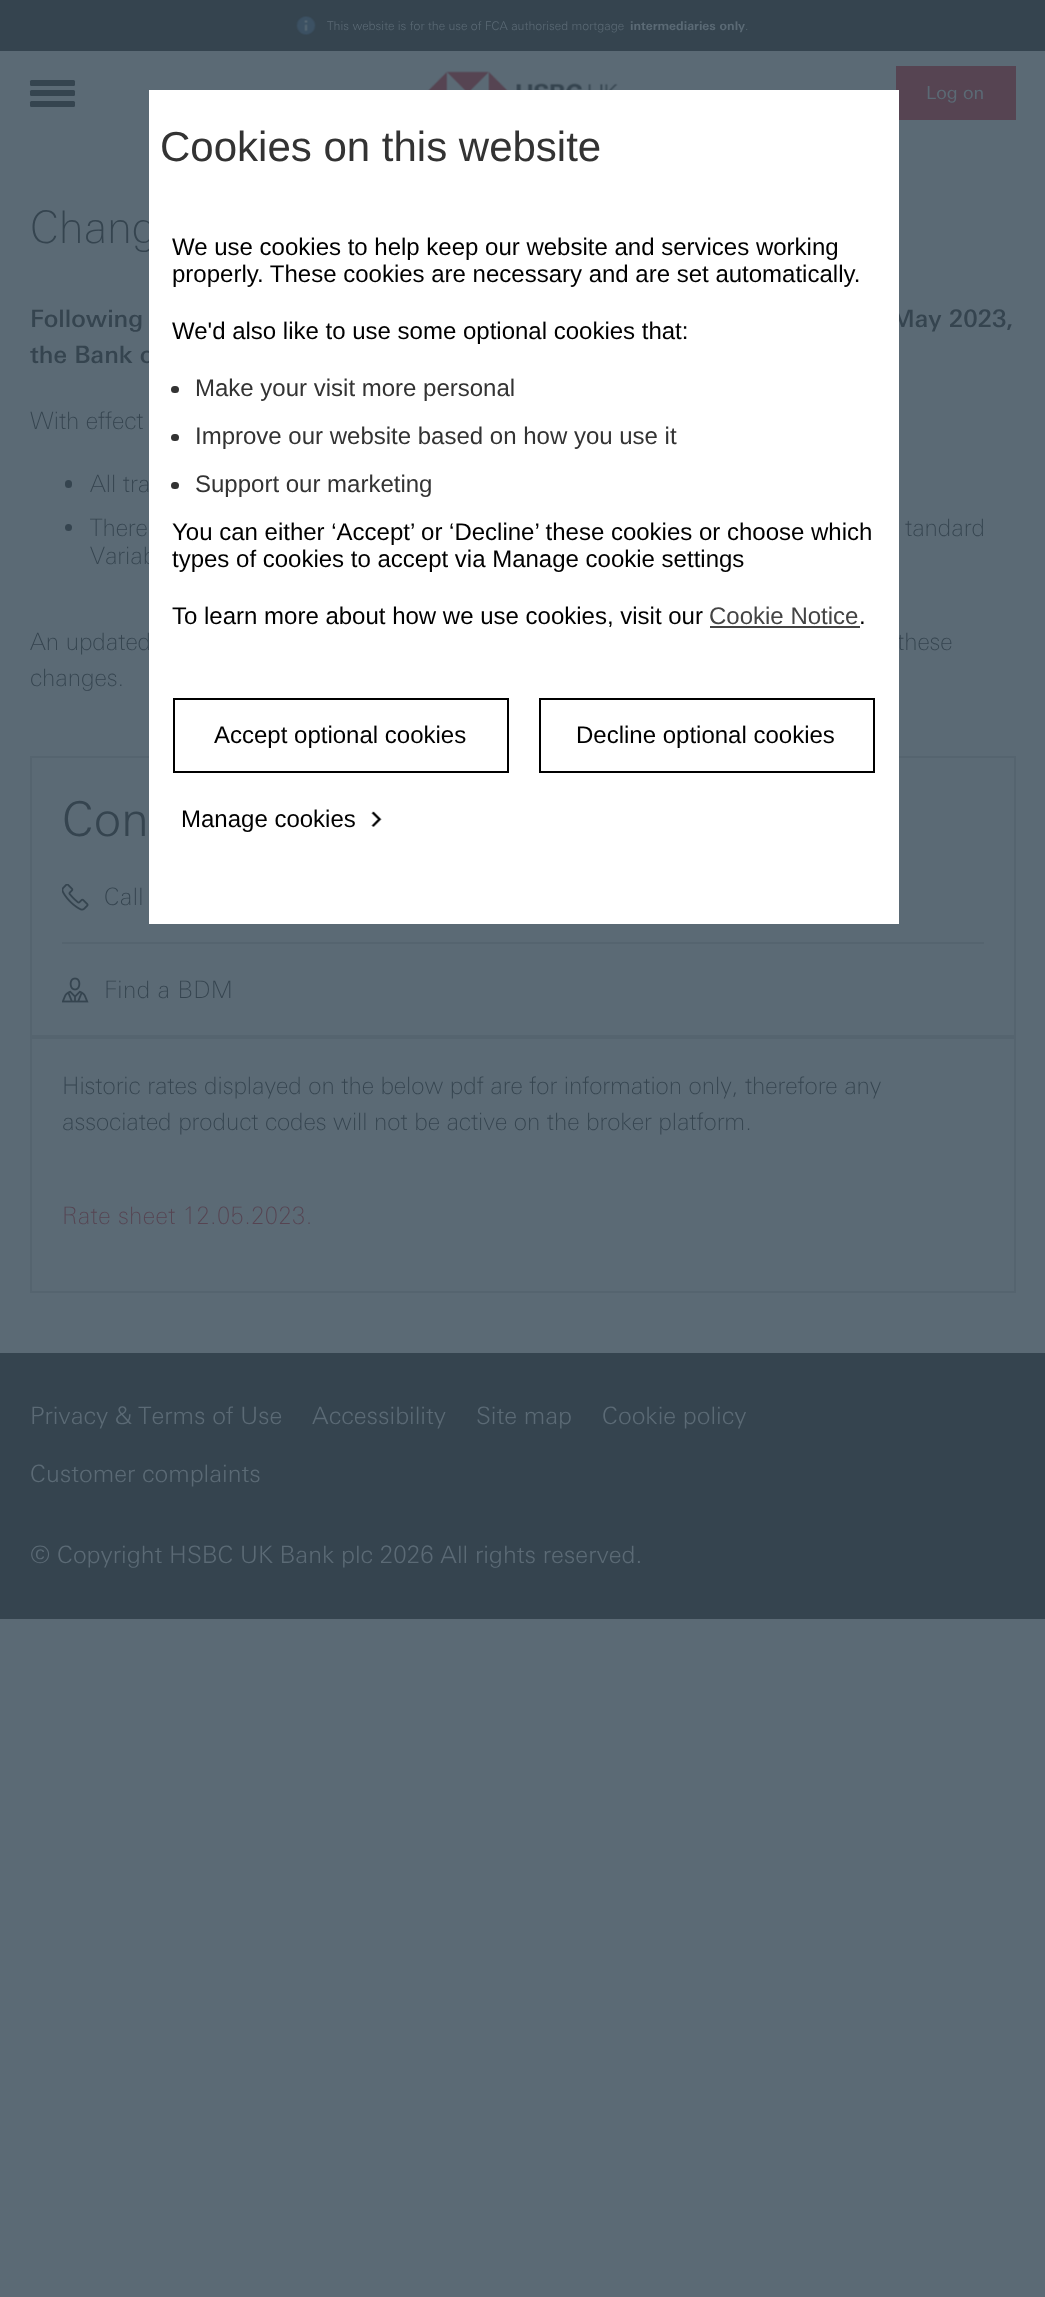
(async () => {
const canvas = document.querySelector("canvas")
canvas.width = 1045
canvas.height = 2297
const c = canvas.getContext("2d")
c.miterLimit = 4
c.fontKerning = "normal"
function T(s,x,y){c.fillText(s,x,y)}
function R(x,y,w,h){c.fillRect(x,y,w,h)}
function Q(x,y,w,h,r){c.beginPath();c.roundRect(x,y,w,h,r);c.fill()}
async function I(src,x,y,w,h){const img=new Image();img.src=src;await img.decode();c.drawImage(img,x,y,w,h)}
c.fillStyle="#5b6a75"
R(0,0,1045,2297)
c.fillStyle="#35444f"
R(0,0,1045,51)
await I("1.png",296,16,20,19)
c.font="300 12px 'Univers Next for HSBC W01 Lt'"
c.fillStyle="#5b6a75"
T("This website is for the use of FCA authorised mortgage",327,30)
c.font="bold 12px 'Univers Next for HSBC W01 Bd'"
T("intermediaries only",630,30)
c.font="300 12px 'Univers Next for HSBC W01 Lt'"
T(".",745,30)
c.fillStyle="#35444f"
Q(30,80,45,6,1.5)
Q(30,90,45,6,1.5)
Q(30,101,45,6,1.5)
await I("2.png",428,71,190,19)
c.fillStyle="#564452"
R(896,66,120,54)
c.font="18px 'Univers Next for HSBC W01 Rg'"
c.fillStyle="#5b6a75"
T("Log on",926,99)
c.font="200 45px 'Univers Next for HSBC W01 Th'"
c.fillStyle="#35444f"
T("Chang",30,243)
c.font="500 24px 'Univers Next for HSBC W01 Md'"
T("Following",30,327)
T("May 2023,",891,327)
T("the Bank o",30,363)
c.font="200 24px 'Univers Next for HSBC W01 Th'"
T("With effect",30,429)
Q(65,480,7,8,3.5)
T("All tra",90,492)
c.beginPath()
c.arc(68.5,527.5,3.5,0,7)
c.fill()
T("There",90,536)
T("tandard",905,536)
T("Variab",90,564)
T("An updated",30,650)
T("these",897,650)
T("changes.",30,686)
c.strokeStyle="#55646f"
c.lineWidth=2
c.strokeRect(31,757,984,279)
c.font="300 48px 'Univers Next for HSBC W01 Lt'"
T("Con",62,836)
c.fillStyle="#55646f"
R(62,942,922,2)
await I("3.png",62,884,27,27)
c.letterSpacing="0.45px"
c.font="200 24px 'Univers Next for HSBC W01 Th'"
c.fillStyle="#35444f"
T("Call",104,905)
await I("4.png",62,977,27,26)
T("Find a BDM",104,998)
c.strokeRect(31,1038,984,254)
c.letterSpacing="0px"
T("Historic rates displayed on the below pdf are for information only, therefore any",62,1094)
T("associated product codes will not be active on the broker platform.",62,1130)
c.letterSpacing="0.45px"
c.fillStyle="#564452"
T("Rate sheet 12.05.2023.",62,1224)
c.fillStyle="#35444f"
R(0,1353,1045,266)
c.letterSpacing="0px"
c.font="300 24px 'Univers Next for HSBC W01 Lt'"
c.fillStyle="#5b6a75"
T("Privacy & Terms of Use",30,1424)
T("Accessibility",312,1424)
T("Site map",476,1424)
T("Cookie policy",602,1424)
T("Customer complaints",30,1482)
T("© Copyright HSBC UK Bank plc 2026 All rights reserved.",30,1563)
c.fillStyle="#fff"
R(149,90,750,834)
c.font="42px Liberation Sans"
c.fillStyle="#333"
T("Cookies on this website",160,161)
c.font="24px Liberation Sans"
c.fillStyle="#000"
T("We use cookies to help keep our website and services working",172,255)
T("properly. These cookies are necessary and are set automatically.",172,282)
T("We'd also like to use some optional cookies that:",172,339)
c.fillStyle="#333"
Q(171,386,8,7,3.5)
T("Make your visit more personal",195,396)
Q(171,434,8,7,3.5)
T("Improve our website based on how you use it",195,444)
Q(171,482,8,7,3.5)
T("Support our marketing",195,492)
c.fillStyle="#000"
T("You can either ‘Accept’ or ‘Decline’ these cookies or choose which",172,540)
T("types of cookies to accept via Manage cookie settings",172,567)
T("To learn more about how we use cookies, visit our",172,624)
c.fillStyle="#444"
T("Cookie Notice",709,624)
R(710,626,150,2)
c.fillStyle="#000"
T(".",859,624)
c.strokeStyle="#000"
c.strokeRect(174,699,334,73)
T("Accept optional cookies",214,743)
c.strokeRect(540,699,334,73)
T("Decline optional cookies",576,743)
T("Manage cookies",181,827)
await I("5.png",371,811,11,16)
})()
